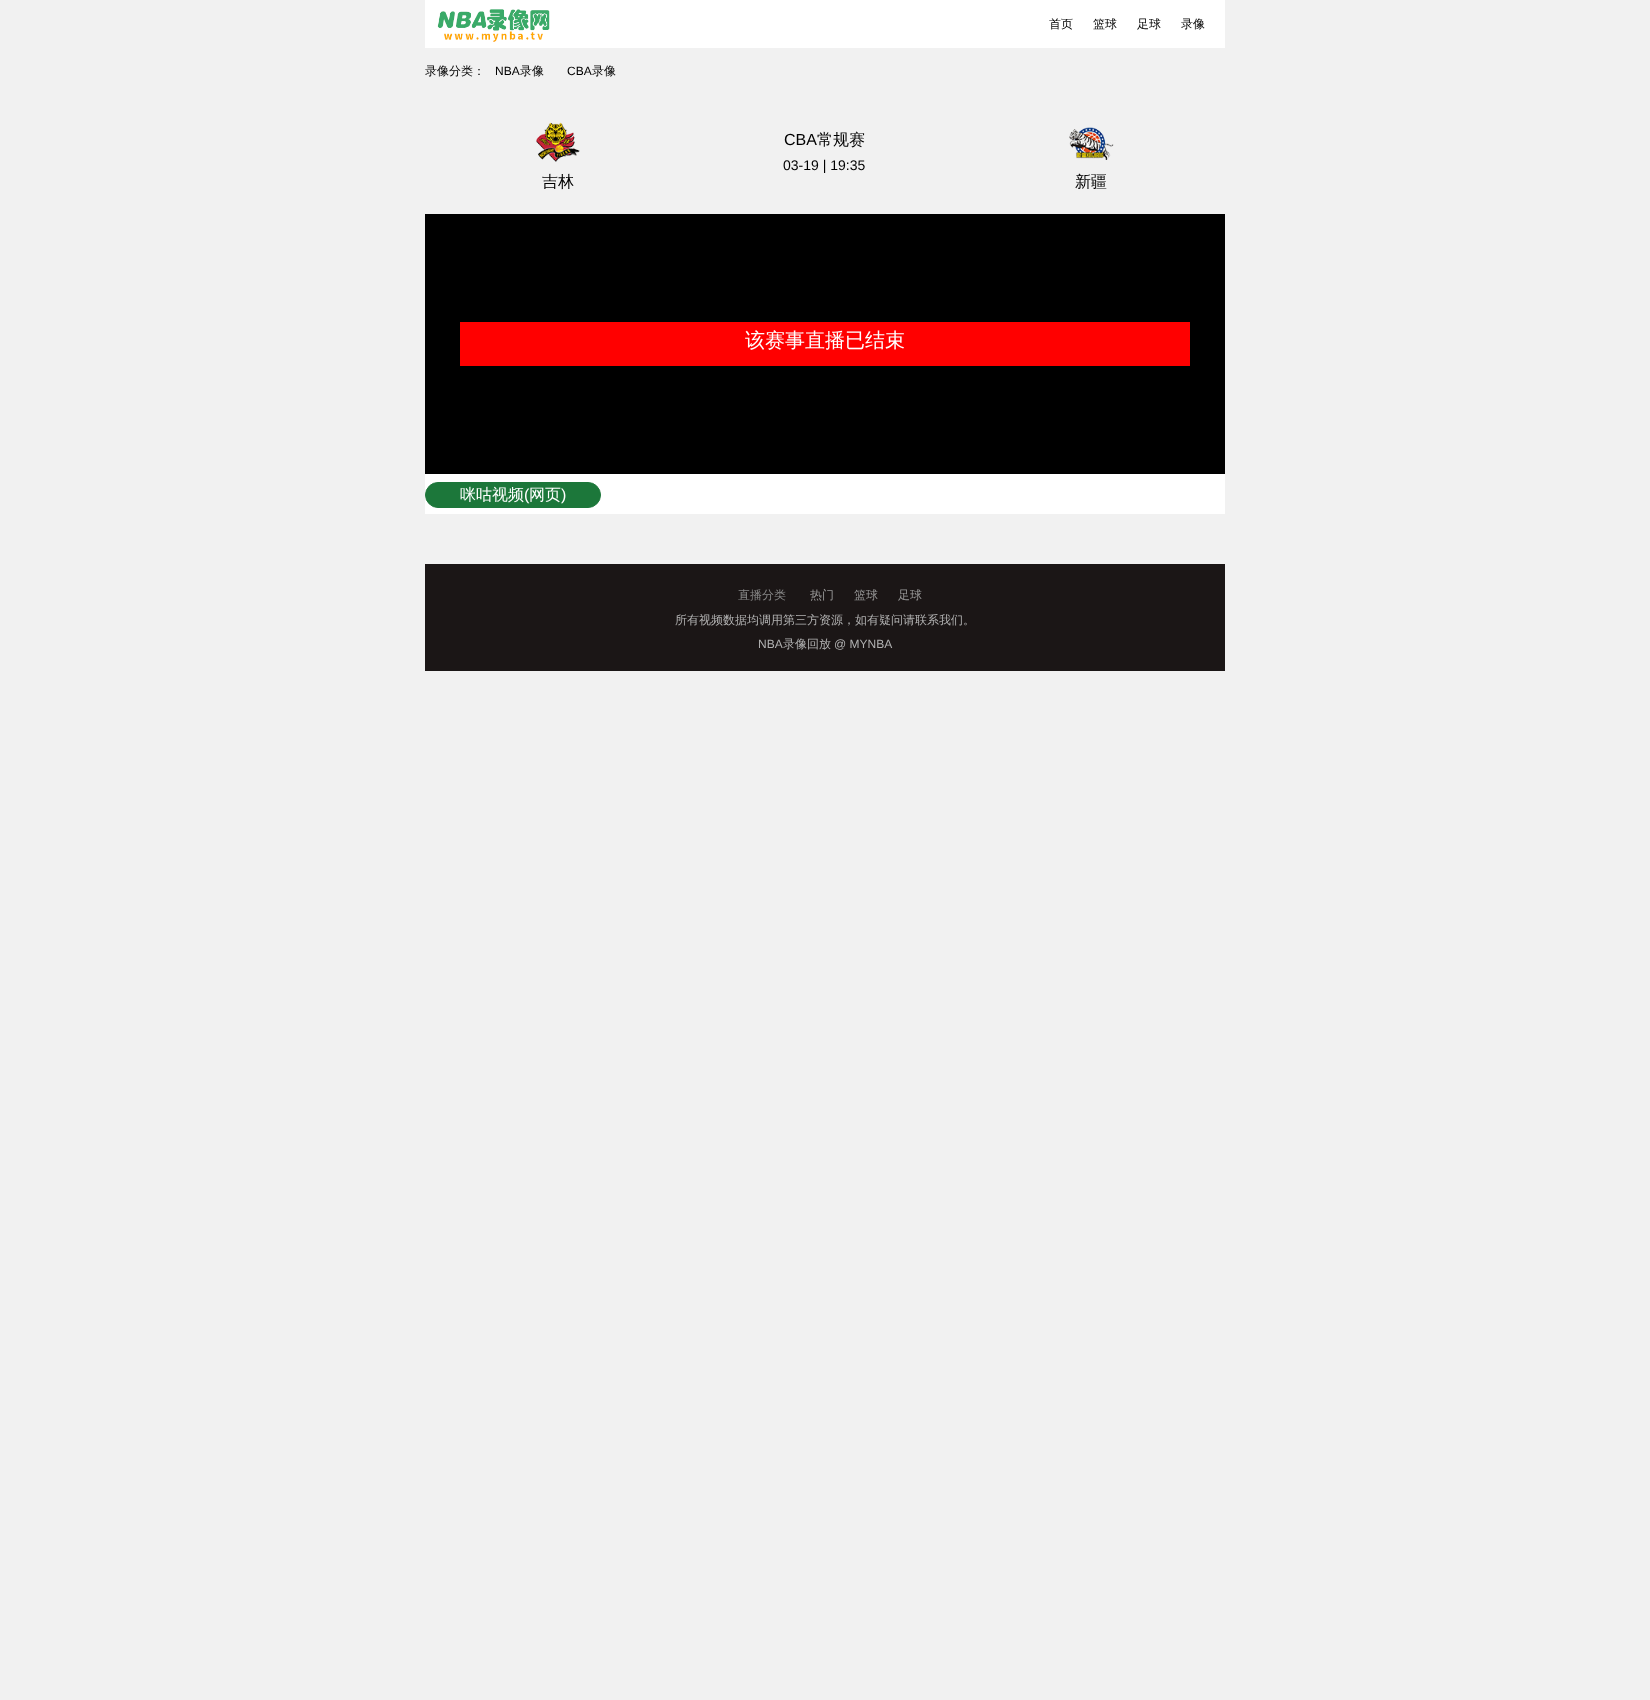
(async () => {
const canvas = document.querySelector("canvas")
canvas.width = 1650
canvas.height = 1700
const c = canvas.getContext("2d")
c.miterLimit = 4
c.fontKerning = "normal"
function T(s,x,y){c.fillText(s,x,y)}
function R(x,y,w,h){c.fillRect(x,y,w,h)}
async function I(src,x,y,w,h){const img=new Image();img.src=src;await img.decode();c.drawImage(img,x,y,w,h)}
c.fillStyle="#f1f1f1"
R(0,0,1650,1700)
c.fillStyle="#fff"
R(425,0,800,48)
await I("1.png",437,9,113,33)
c.font="500 12px WenQuanYi Zen Hei"
c.fillStyle="#000"
T("首页",1049,28)
T("篮球",1093,28)
T("足球",1137,28)
T("录像",1181,28)
T("录像分类：",425,75)
c.font="12px Liberation Sans"
T("NBA",495,75)
c.font="500 12px WenQuanYi Zen Hei"
T("录像",520,75)
c.font="12px Liberation Sans"
T("CBA",567,75)
c.font="500 12px WenQuanYi Zen Hei"
T("录像",592,75)
c.font="16px Liberation Sans"
T("CBA",784,145)
c.font="500 16px WenQuanYi Zen Hei"
T("常规赛",817,145)
c.font="14px Liberation Sans"
T("03-19 | 19:35",783,170)
await I("2.png",536,122,44,40)
c.font="500 16px WenQuanYi Zen Hei"
T("吉林",542,187)
await I("3.png",1069,127,45,33)
T("新疆",1075,187)
R(425,214,800,260)
c.fillStyle="#f00"
R(460,322,730,44)
c.font="500 20px WenQuanYi Zen Hei"
c.fillStyle="#fff"
T("该赛事直播已结束",745,347)
R(425,474,800,40)
c.fillStyle="#1c773a"
c.beginPath()
c.roundRect(425.5,482.5,175,25,12.5)
c.fill()
c.strokeStyle="#1c773a"
c.stroke()
c.font="500 16px WenQuanYi Zen Hei"
c.fillStyle="#fff"
T("咪咕视频",460,500)
c.font="16px Liberation Sans"
T("(",524,500)
c.font="500 16px WenQuanYi Zen Hei"
T("网页",529,500)
c.font="16px Liberation Sans"
T(")",561,500)
c.fillStyle="#1b1616"
R(425,564,800,107)
c.font="500 12px WenQuanYi Zen Hei"
c.fillStyle="#888"
T("直播分类",738,599)
c.fillStyle="#999"
T("热门",810,599)
T("篮球",854,599)
T("足球",898,599)
c.fillStyle="#b1b1b1"
T("所有视频数据均调用第三方资源，如有疑问请联系我们。",675,624)
c.font="12px Liberation Sans"
T("NBA",758,648)
c.font="500 12px WenQuanYi Zen Hei"
T("录像回放",783,648)
c.font="12px Liberation Sans"
T("@ MYNBA",834,648)
})()
